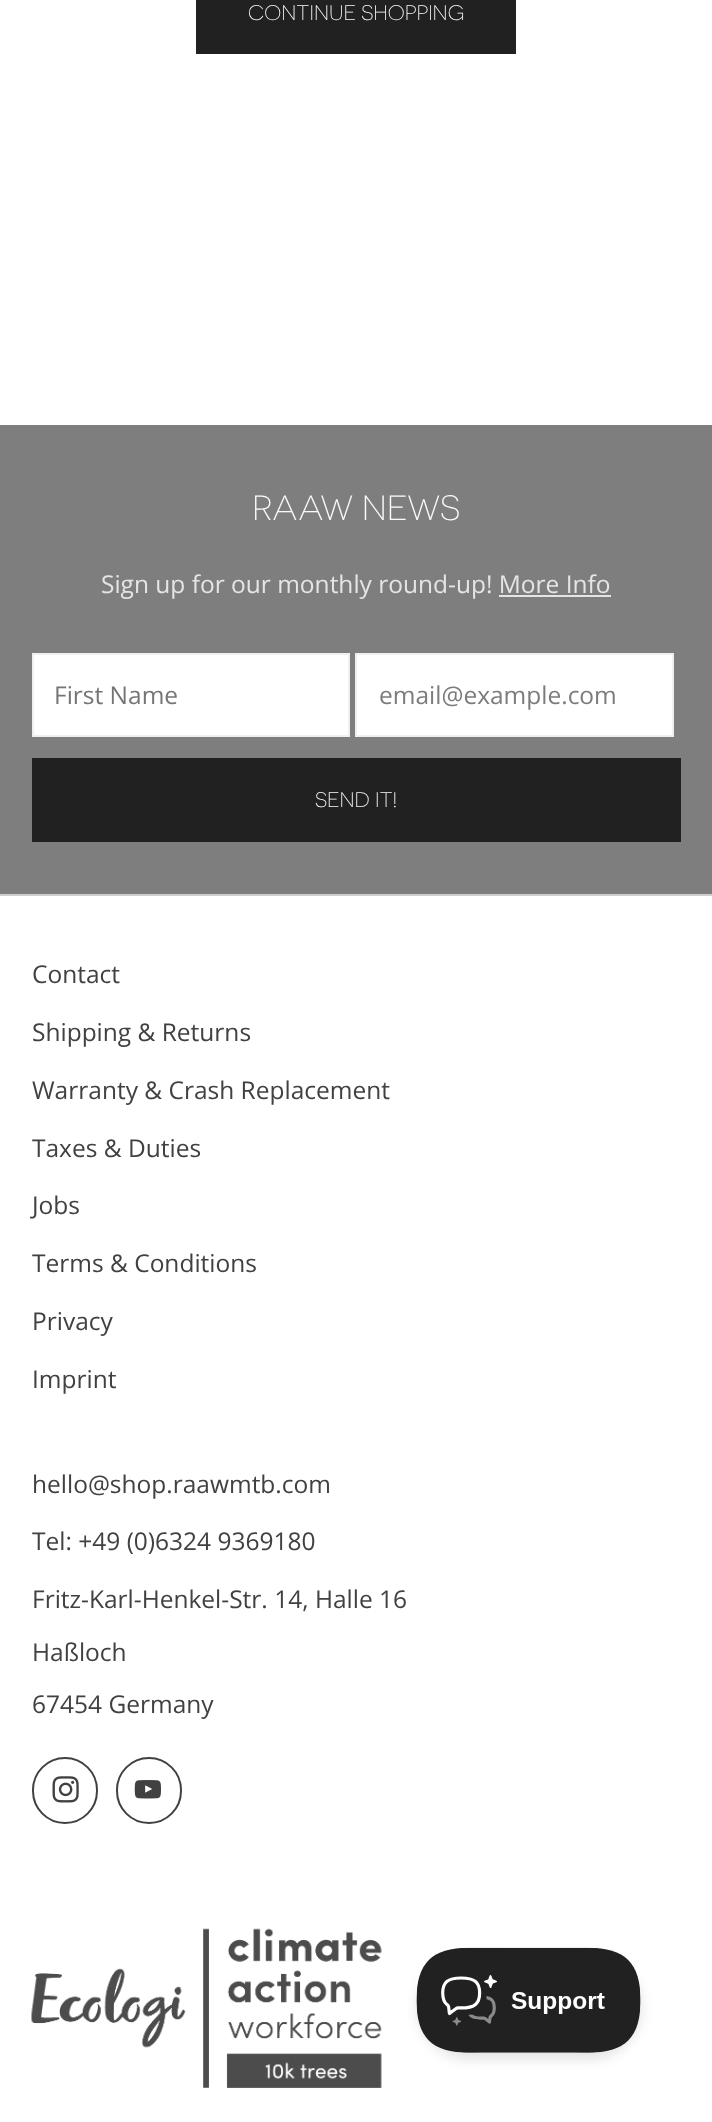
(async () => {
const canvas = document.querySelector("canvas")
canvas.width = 712
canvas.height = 2122
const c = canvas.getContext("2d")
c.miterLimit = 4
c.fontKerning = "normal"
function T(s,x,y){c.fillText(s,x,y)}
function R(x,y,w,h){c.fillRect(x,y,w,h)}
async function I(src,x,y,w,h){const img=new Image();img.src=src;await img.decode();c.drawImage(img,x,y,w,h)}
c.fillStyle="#fff"
R(0,0,712,2122)
c.fillStyle="#212121"
R(196,0,320,54)
c.font="21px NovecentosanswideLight"
c.fillStyle="#fafafa"
T("CONTINUE SHOPPING",248,20)
c.fillStyle="#7e7e7e"
R(0,425,712,469)
c.font="35px NovecentosanswideLight"
c.fillStyle="#fafafa"
T("RAAW NEWS",252,520)
c.font="24.5px Open Sans"
c.fillStyle="#e5e5e5"
T("Sign up for our monthly round-up! More Info",101,593)
R(499,595,112,2)
c.fillStyle="#fff"
c.beginPath()
c.rect(33,654,316,82)
c.fill()
c.strokeStyle="#f0f0f0"
c.lineWidth=2
c.stroke()
c.fillStyle="#757575"
T("First Name",54,704)
c.fillStyle="#fff"
c.beginPath()
c.rect(356,654,317,82)
c.fill()
c.stroke()
c.fillStyle="#7c7c7c"
T("email@example.com",379,704)
c.fillStyle="#212121"
R(32,758,649,84)
c.font="21px NovecentosanswideLight"
c.fillStyle="#fafafa"
T("SEND IT!",315,807)
c.fillStyle="#cfcfcf"
R(0,894,712,2)
c.font="24.5px Open Sans"
c.fillStyle="#414141"
T("Contact",32,983)
T("Shipping & Returns",32,1041)
T("Warranty & Crash Replacement",32,1099)
T("Taxes & Duties",32,1157)
T("Jobs",32,1214)
T("Terms & Conditions",32,1272)
T("Privacy",32,1330)
T("Imprint",32,1388)
T("hello@shop.raawmtb.com",32,1493)
T("Tel: +49 (0)6324 9369180",32,1550)
T("Fritz-Karl-Henkel-Str. 14, Halle 16",32,1608)
T("Haßloch",32,1661)
T("67454 Germany",32,1713)
c.beginPath()
c.roundRect(33,1758,64,65,32)
c.strokeStyle="#414141"
c.stroke()
await I("1.png",52,1776,27,27)
c.beginPath()
c.roundRect(117,1758,64,65,32)
c.stroke()
await I("2.png",134,1780,27,19)
await I("3.png",31,1928,351,160)
c.fillStyle="#0000001a"
c.filter="blur(6px)"
c.beginPath()
c.roundRect(417,1955,225,105,52.5)
c.fill()
c.filter="none"
await I("4.png",416,1947,225,106)
})()
